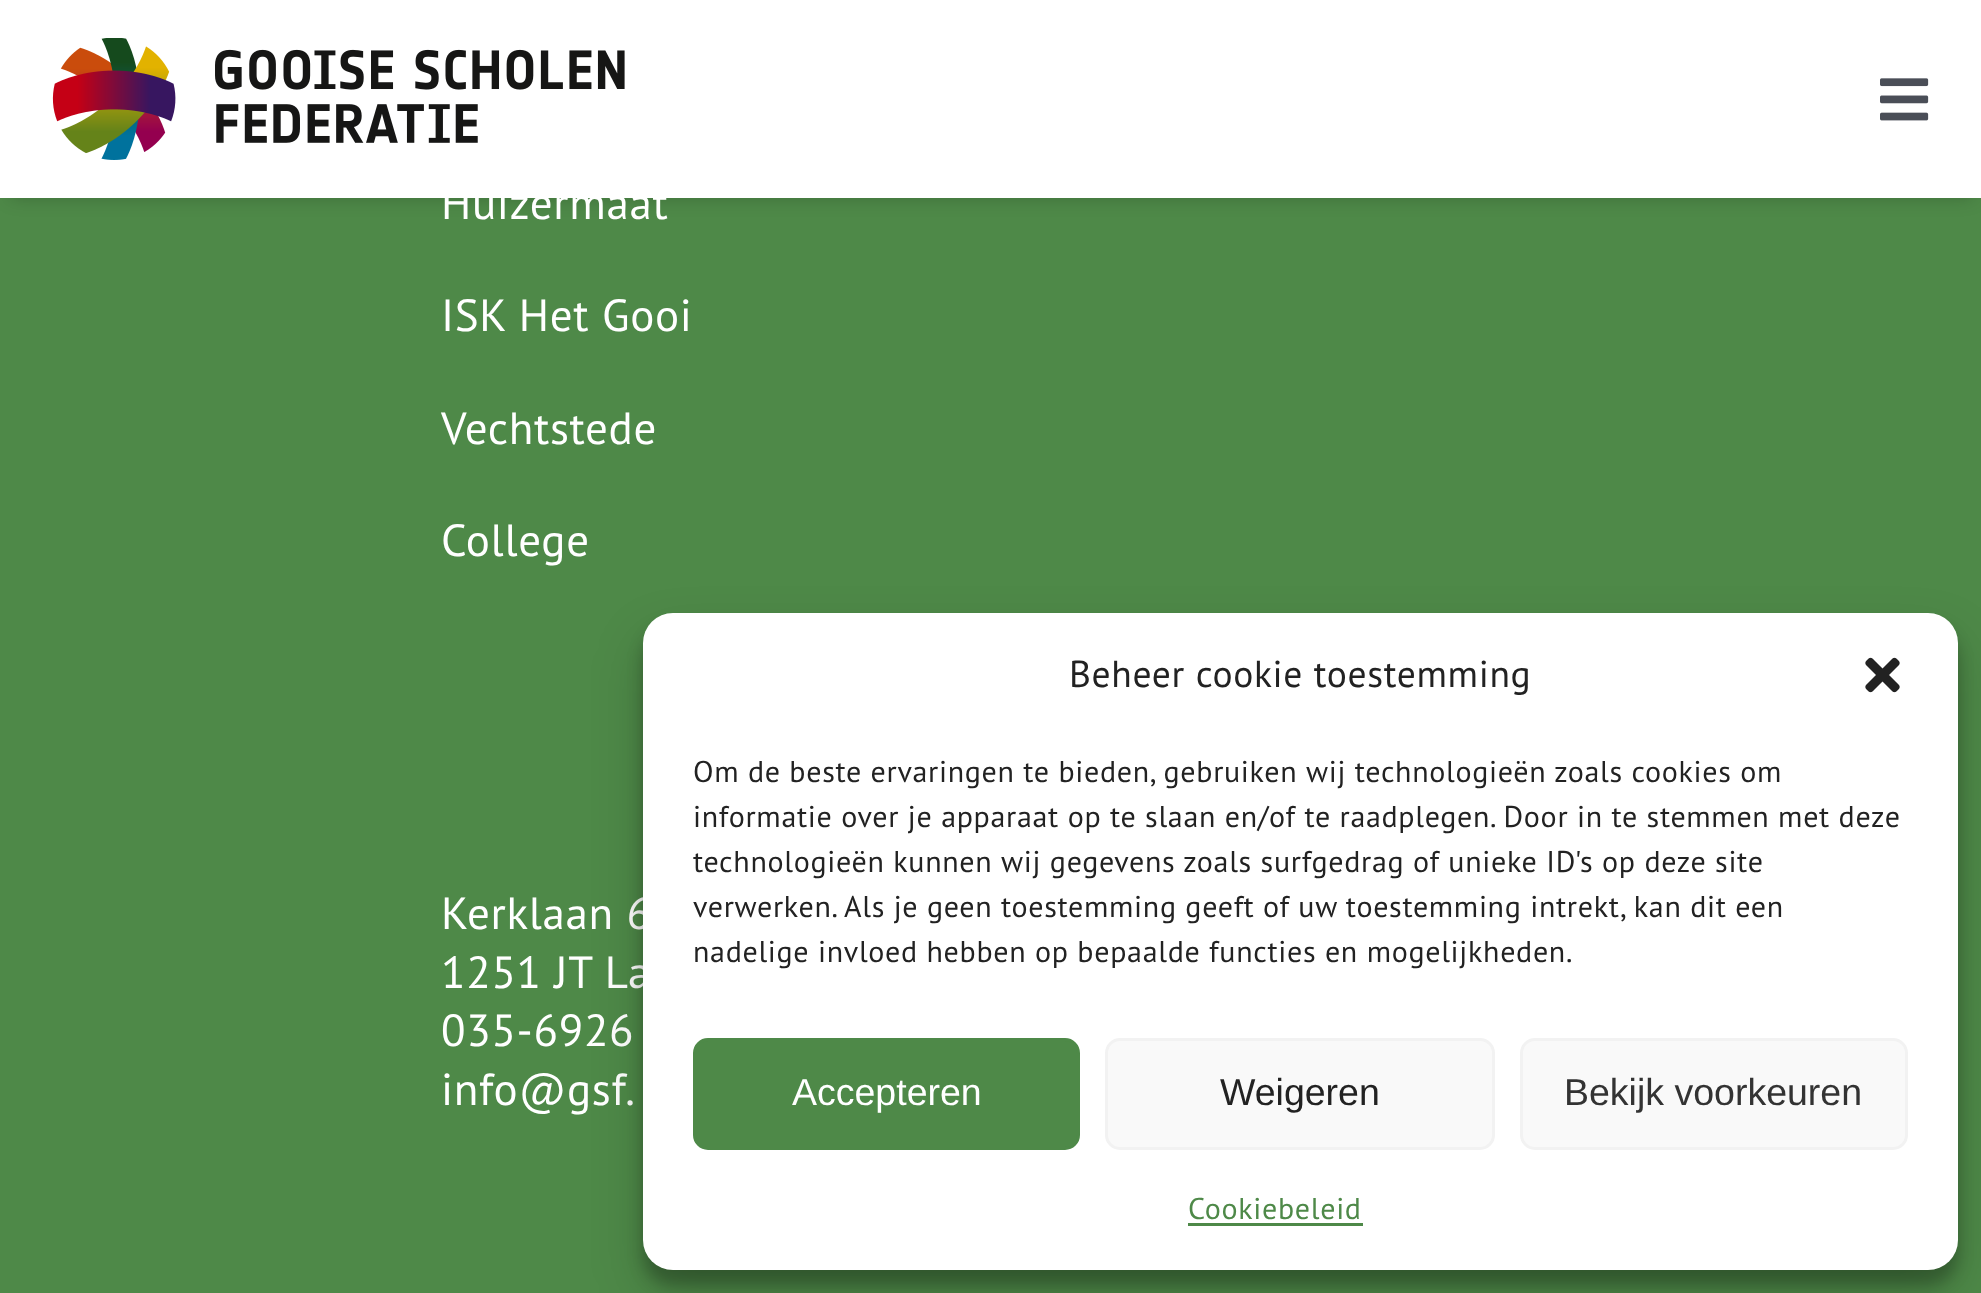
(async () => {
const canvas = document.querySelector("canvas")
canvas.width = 1981
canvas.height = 1293
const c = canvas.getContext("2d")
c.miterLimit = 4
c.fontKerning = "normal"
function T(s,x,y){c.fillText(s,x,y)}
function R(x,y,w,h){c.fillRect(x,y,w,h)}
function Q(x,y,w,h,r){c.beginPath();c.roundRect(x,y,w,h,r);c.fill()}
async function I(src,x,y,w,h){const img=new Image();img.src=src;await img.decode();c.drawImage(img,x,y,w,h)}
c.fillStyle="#4e8948"
R(0,0,1981,1293)
c.fillStyle="#00000033"
c.filter="blur(9px)"
c.beginPath()
c.rect(10,20,1963,178)
c.fill()
c.filter="none"
c.fillStyle="#fff"
R(0,0,1981,198)
await I("1.png",52,38,573,122)
await I("2.png",1880,78,49,43)
c.letterSpacing="0.68px"
c.font="45px PT Sans"
T("Huizermaat",441,219)
T("ISK Het Gooi",441,331)
T("Vechtstede",441,444)
T("College",441,556)
T("Kerklaan 6",441,929)
T("1251 JT La",441,988)
T("035-6926",441,1046)
T("info@gsf.",441,1105)
c.fillStyle="#0000003b"
c.filter="blur(7.5px)"
c.beginPath()
c.roundRect(643,628,1315,657,30)
c.fill()
c.filter="none"
c.fillStyle="#00000030"
c.filter="blur(25px)"
c.beginPath()
c.roundRect(643,638,1315,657,30)
c.fill()
c.filter="none"
c.fillStyle="#fff"
Q(643,613,1315,657,30)
c.font="37.5px PT Sans"
c.fillStyle="#222"
T("Beheer cookie toestemming",1069,687)
await I("3.png",1865,657,35,36)
c.font="30px PT Sans"
T("Om de beste ervaringen te bieden, gebruiken wij technologieën zoals cookies om",693,782)
T("informatie over je apparaat op te slaan en/of te raadplegen. Door in te stemmen met deze",693,827)
T("technologieën kunnen wij gegevens zoals surfgedrag of unieke ID's op deze site",693,872)
T("verwerken. Als je geen toestemming geeft of uw toestemming intrekt, kan dit een",693,917)
T("nadelige invloed hebben op bepaalde functies en mogelijkheden.",693,962)
c.fillStyle="#4e8948"
c.beginPath()
c.roundRect(694.5,1039.5,384,109,13.5)
c.fill()
c.strokeStyle="#4e8948"
c.lineWidth=3
c.stroke()
c.letterSpacing="0px"
c.font="37.5px Liberation Sans"
c.fillStyle="#fff"
T("Accepteren",792,1105)
c.fillStyle="#f9f9f9"
c.beginPath()
c.roundRect(1106.5,1039.5,387,109,13.5)
c.fill()
c.strokeStyle="#f2f2f2"
c.stroke()
c.fillStyle="#222"
T("Weigeren",1220,1105)
c.fillStyle="#f9f9f9"
c.beginPath()
c.roundRect(1521.5,1039.5,385,109,13.5)
c.fill()
c.stroke()
c.fillStyle="#333"
T("Bekijk voorkeuren",1564,1105)
c.letterSpacing="0.68px"
c.font="30px PT Sans"
c.fillStyle="#4e8948"
T("Cookiebeleid",1188,1219)
R(1188,1223,175,3)
})()
